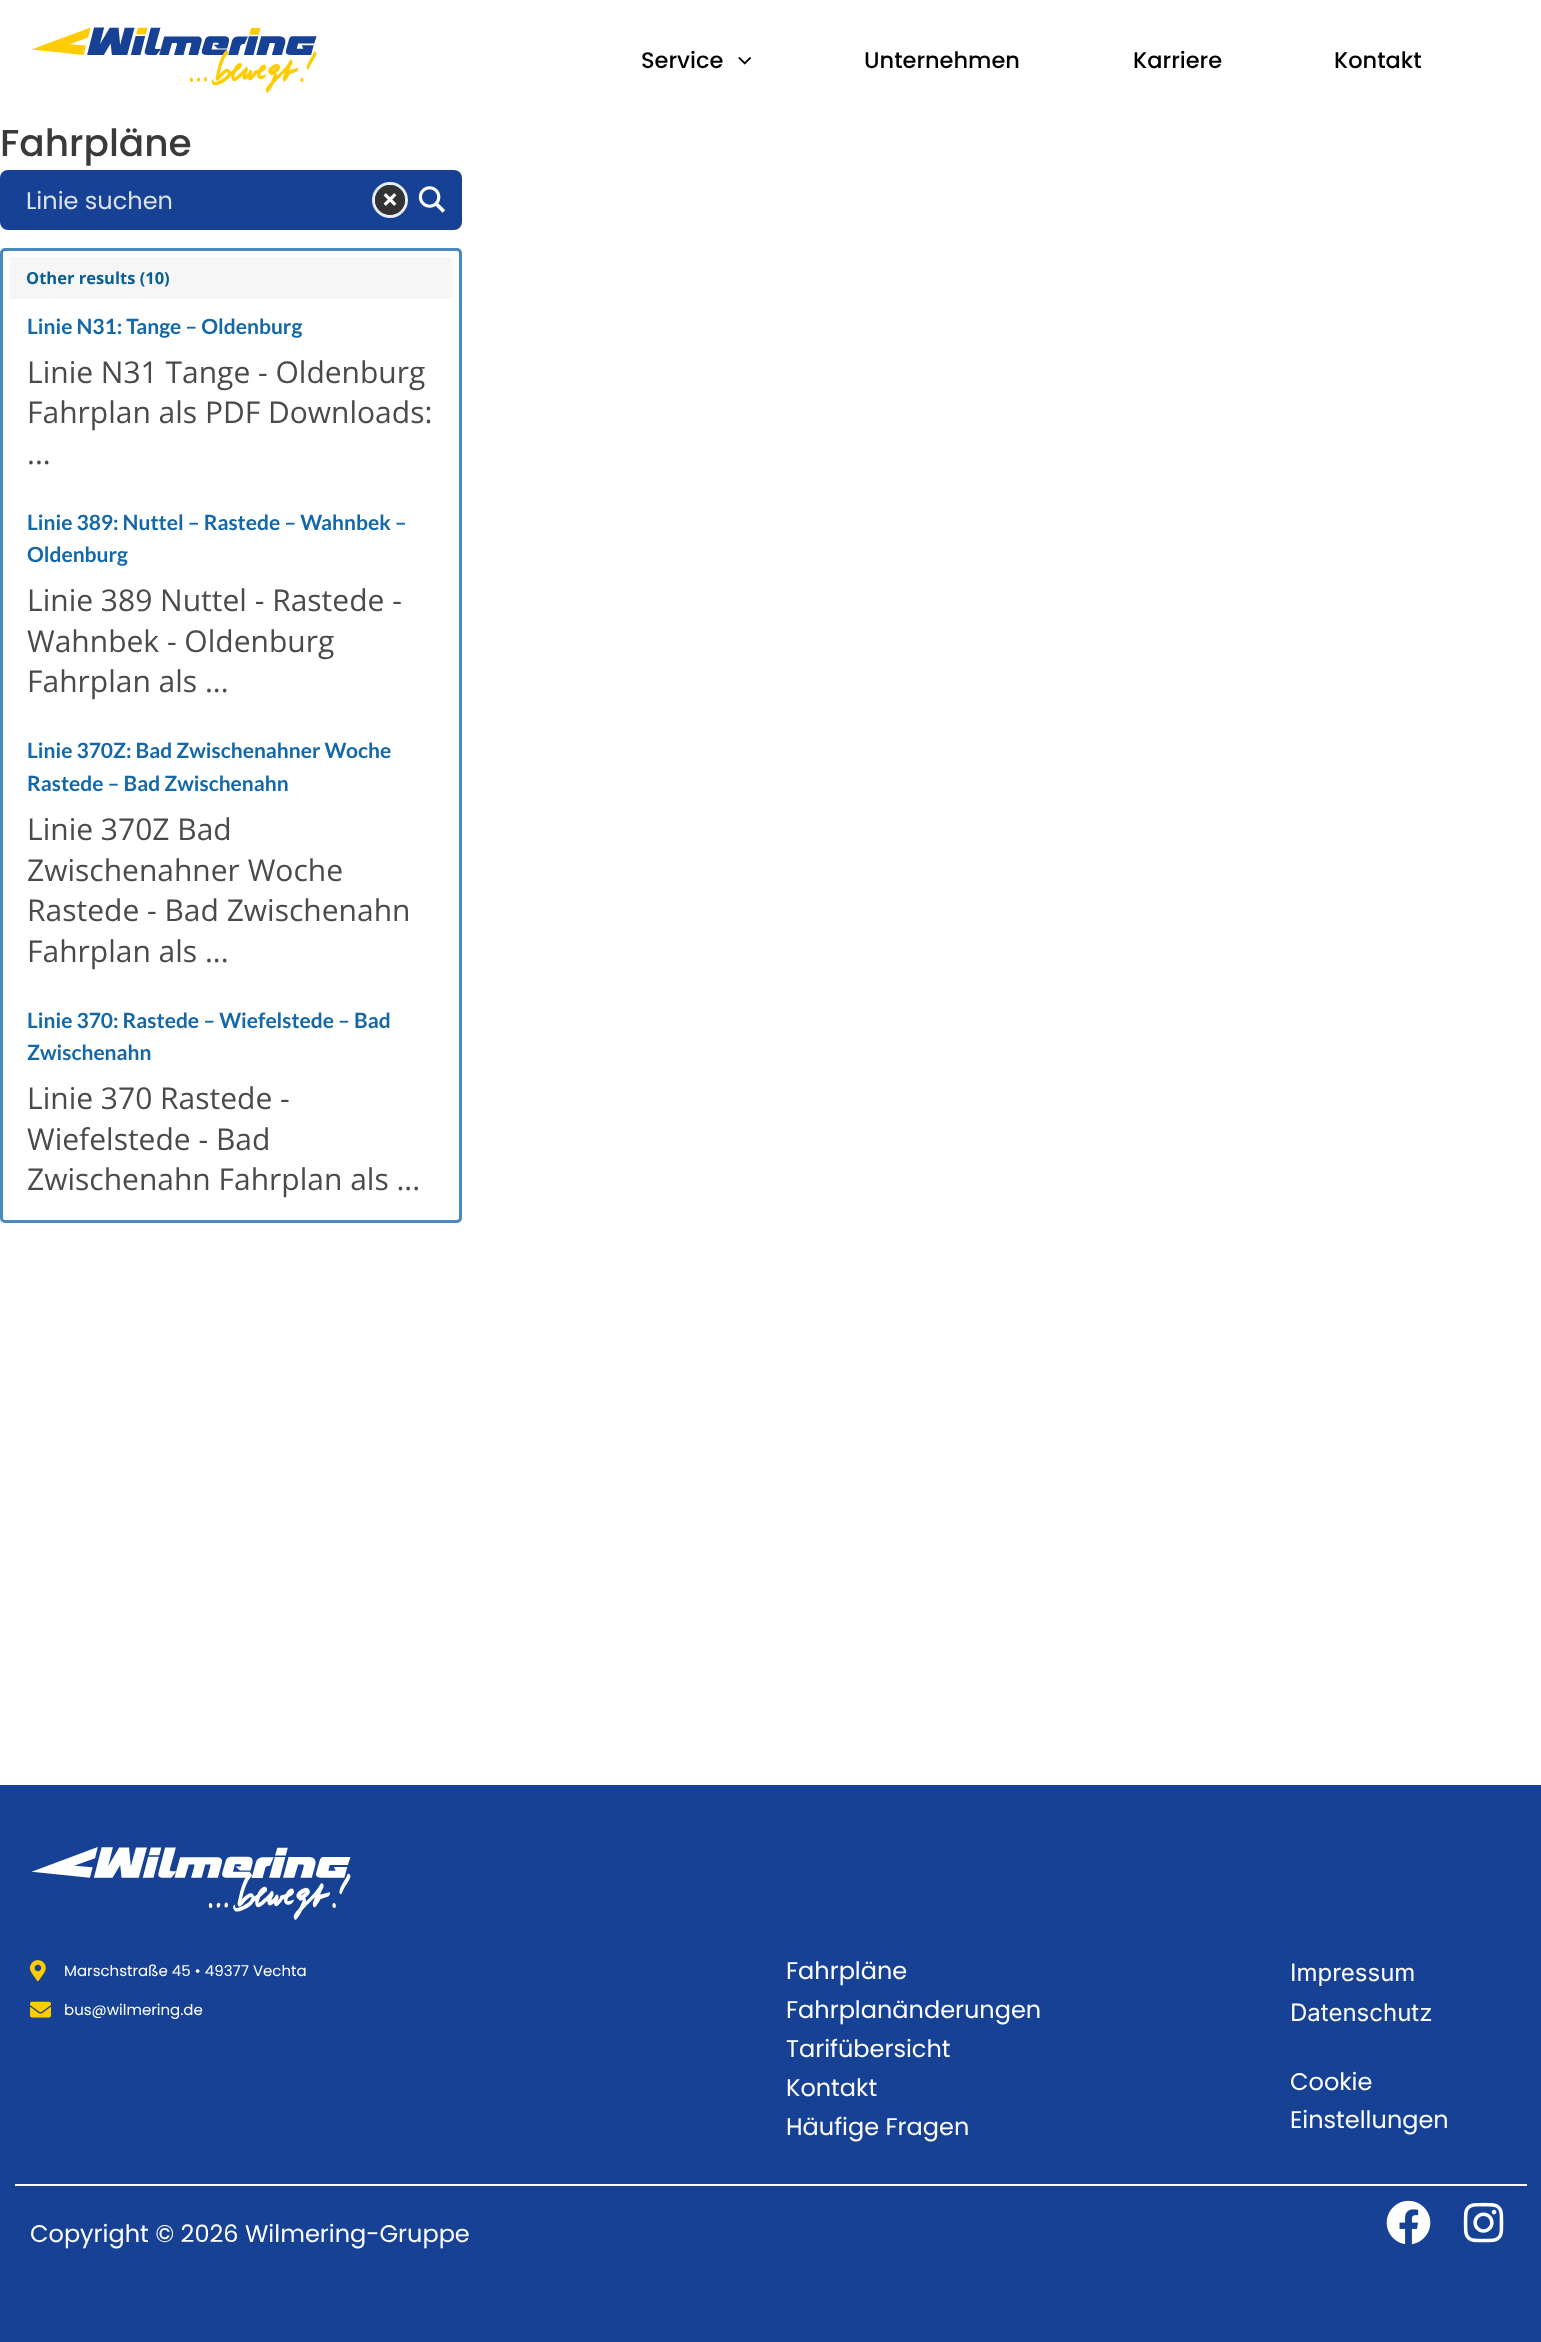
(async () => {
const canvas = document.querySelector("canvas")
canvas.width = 1541
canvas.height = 2342
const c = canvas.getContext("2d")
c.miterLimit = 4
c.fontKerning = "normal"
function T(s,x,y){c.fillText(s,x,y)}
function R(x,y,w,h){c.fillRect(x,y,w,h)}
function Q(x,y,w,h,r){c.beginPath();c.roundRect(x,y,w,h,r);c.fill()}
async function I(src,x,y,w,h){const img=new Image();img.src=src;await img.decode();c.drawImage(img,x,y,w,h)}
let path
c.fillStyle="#fff"
R(0,0,1541,2342)
await I("1.png",31,27,286,66)
c.font="500 22.5px Poppins"
c.fillStyle="#000"
T("Service",641,68)
await I("2.png",738,57,14,8)
T("Unternehmen",864,68)
T("Karriere",1133,68)
T("Kontakt",1334,68)
c.font="500 37.5px Poppins"
c.fillStyle="#3a3a3a"
T("Fahrpläne",0,156)
c.fillStyle="#164194"
Q(0,170,462,60,8)
c.font="24px Poppins"
c.fillStyle="#dce3ef"
T("Linie suchen",26,209)
c.beginPath()
c.arc(390,200,16.5,0,7)
c.strokeStyle="#e8ecf4"
c.lineWidth=3
c.stroke()
c.fillStyle="#333"
c.beginPath()
c.arc(390,200,15,0,7)
c.fill()
await I("3.png",383,193,14,13)
await I("4.png",418,186,28,27)
c.fillStyle="#164194"
R(0,1785,1541,557)
await I("5.png",31,1847,320,73)
c.fillStyle="#fff"
R(15,2184,1512,2)
await I("6.png",30,1960,16,22)
c.font="15px Poppins"
T("Marschstraße 45 • 49377 Vechta",64,1976)
await I("7.png",30,2001,21,17)
T("bus@wilmering.de",64,2015)
c.font="24px Poppins"
T("Fahrpläne",786,1979)
T("Fahrplanänderungen",786,2018)
T("Tarifübersicht",786,2057)
T("Kontakt",786,2096)
T("Häufige Fragen",786,2135)
c.font="24px Inter"
T("Impressum",1290,1981)
T("Datenschutz",1290,2021)
c.font="24px Poppins"
T("Cookie",1290,2090)
T("Einstellungen",1290,2128)
T("Copyright © 2026 Wilmering-Gruppe",30,2242)
await I("8.png",1386,2200,45,45)
await I("9.png",1463,2202,41,41)
c.beginPath()
c.roundRect(1.5,249.5,459,972,3.5)
c.strokeStyle="#4a89bf"
c.stroke()
c.fillStyle="#f6f6f6"
c.beginPath()
c.roundRect(9,257,444,42,[5,5,0,0])
c.fill()
c.save()
c.beginPath()
c.rect(9,257,444,957)
c.clip()
c.fillStyle="#f8f8f8"
path = new Path2D("M14 256h434c3 0 5 3 5 5v37h-444v-37c0-2 2-5 5-5zm0 2h434c2 0 4 1 4 3v37h-442v-37c0-2 2-3 4-3z")
c.fill(path,"evenodd")
c.restore()
c.font="bold 16.5px Open Sans"
c.fillStyle="#055e94"
T("Other results (10)",26,284)
c.font="bold 21px Lato"
c.fillStyle="#1468a9"
T("Linie N31: Tange – Oldenburg",27,334)
c.font="30px Open Sans"
c.fillStyle="#4a4a4a"
T("Linie N31 Tange - Oldenburg",27,383)
T("Fahrplan als PDF Downloads:",27,423)
T("...",27,464)
c.font="bold 21px Lato"
c.fillStyle="#1468a9"
T("Linie 389: Nuttel – Rastede – Wahnbek –",27,530)
T("Oldenburg",27,562)
c.font="30px Open Sans"
c.fillStyle="#4a4a4a"
T("Linie 389 Nuttel - Rastede -",27,611)
T("Wahnbek - Oldenburg",27,652)
T("Fahrplan als ...",27,692)
c.font="bold 21px Lato"
c.fillStyle="#1468a9"
T("Linie 370Z: Bad Zwischenahner Woche",27,758)
T("Rastede – Bad Zwischenahn",27,791)
c.font="30px Open Sans"
c.fillStyle="#4a4a4a"
T("Linie 370Z Bad",27,840)
T("Zwischenahner Woche",27,881)
T("Rastede - Bad Zwischenahn",27,921)
T("Fahrplan als ...",27,962)
c.font="bold 21px Lato"
c.fillStyle="#1468a9"
T("Linie 370: Rastede – Wiefelstede – Bad",27,1028)
T("Zwischenahn",27,1060)
c.font="30px Open Sans"
c.fillStyle="#4a4a4a"
T("Linie 370 Rastede -",27,1109)
T("Wiefelstede - Bad",27,1150)
T("Zwischenahn Fahrplan als ...",27,1190)
})()
